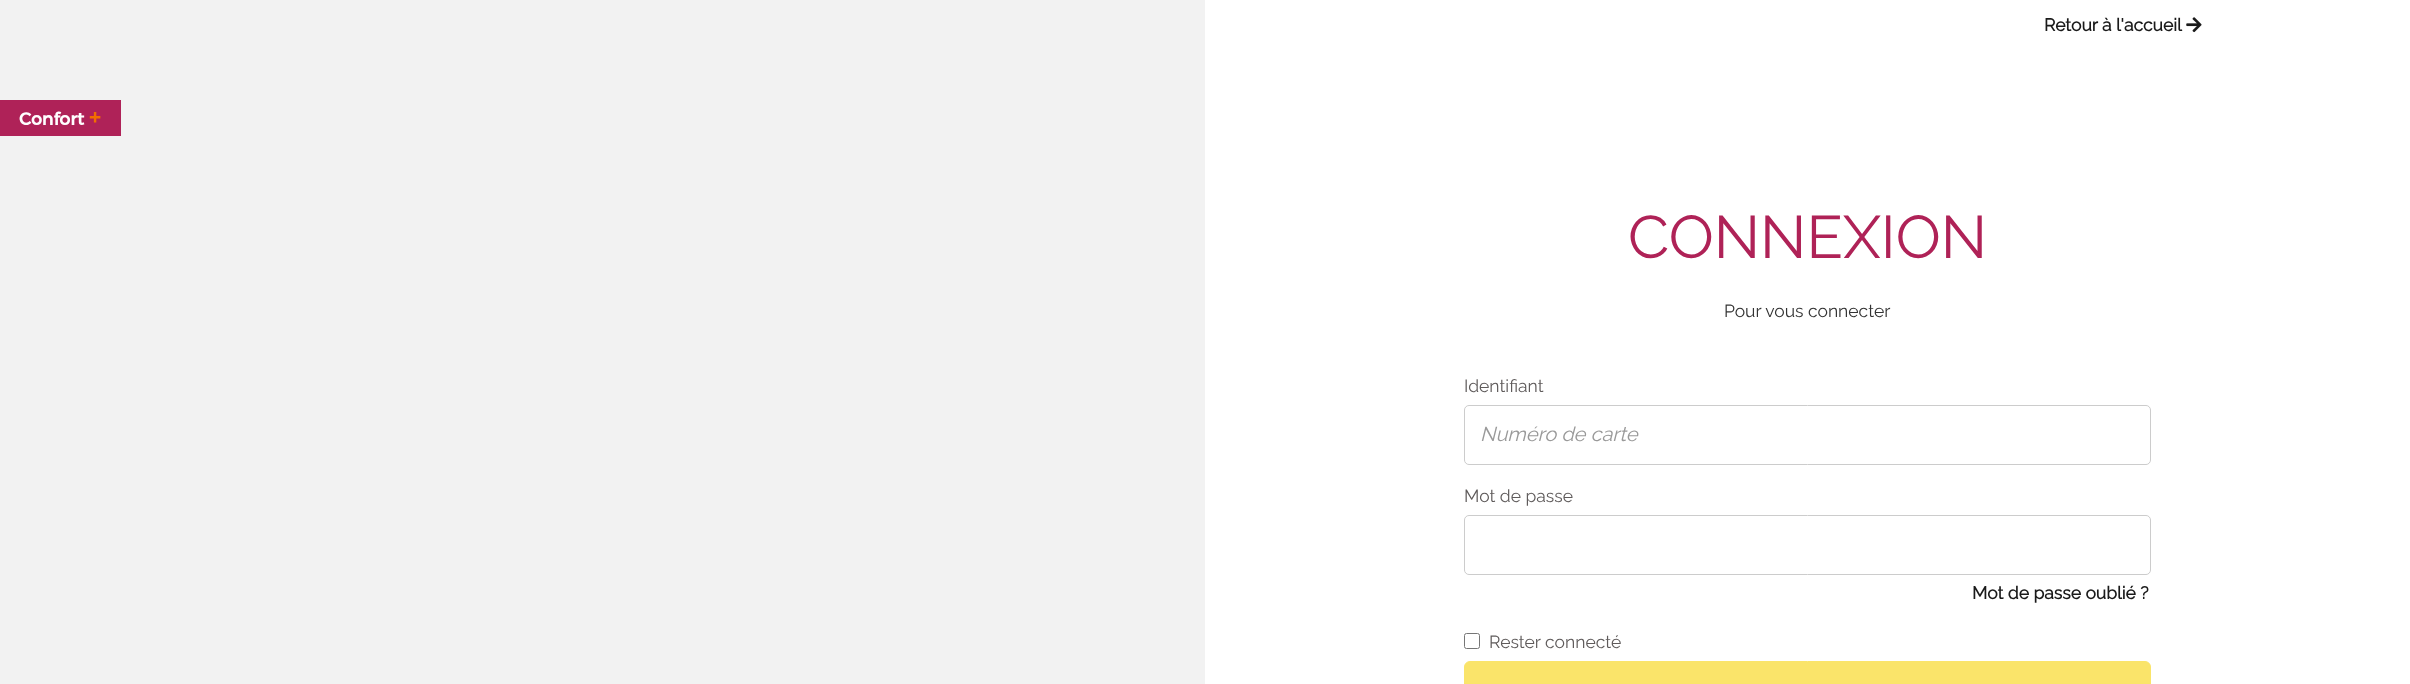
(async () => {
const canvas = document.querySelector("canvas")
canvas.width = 2410
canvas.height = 684
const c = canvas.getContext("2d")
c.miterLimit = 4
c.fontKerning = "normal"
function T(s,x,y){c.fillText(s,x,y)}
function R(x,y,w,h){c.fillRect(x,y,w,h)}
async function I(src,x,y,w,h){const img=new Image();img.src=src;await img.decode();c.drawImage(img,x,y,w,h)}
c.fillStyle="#f2f2f2"
R(0,0,2410,684)
c.fillStyle="#af2258"
R(0,100,121,36)
c.font="bold 17.5px Montserrat"
c.fillStyle="#fff"
T("Confort",19,125)
c.font="bold 23px Montserrat"
c.fillStyle="#f16e00"
T("+",89,125)
c.fillStyle="#fff"
R(1205,0,1205,684)
c.font="bold 17.5px Raleway"
c.fillStyle="#1a1a1a"
T("Retour à l'accueil",2044,31)
await I("1.png",2186,17,16,16)
c.font="100 60px Raleway"
c.fillStyle="#af2257"
T("CONNEXION",1628,258)
c.font="100 17.5px Raleway"
c.fillStyle="#333"
T("Pour vous connecter",1724,317)
c.fillStyle="#5f5b5b"
T("Identifiant",1464,392)
c.beginPath()
c.roundRect(1464.5,405.5,686,59,4.5)
c.strokeStyle="#ccc"
c.stroke()
c.font="italic 100 20px Raleway"
c.fillStyle="#999"
T("Numéro de carte",1480,441)
c.font="100 17.5px Raleway"
c.fillStyle="#5f5b5b"
T("Mot de passe",1464,502)
c.beginPath()
c.roundRect(1464.5,515.5,686,59,4.5)
c.stroke()
c.font="bold 17.5px Raleway"
c.fillStyle="#1a1a1a"
T("Mot de passe oublié ?",1972,599)
c.beginPath()
c.roundRect(1464.5,633.5,15,15,2)
c.strokeStyle="#767676"
c.stroke()
c.font="100 17.5px Raleway"
c.fillStyle="#5f5b5b"
T("Rester connecté",1489,648)
c.fillStyle="#fae46a"
c.beginPath()
c.roundRect(1464.5,661.5,686,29,5.5)
c.fill()
c.strokeStyle="#fae46a"
c.stroke()
})()
